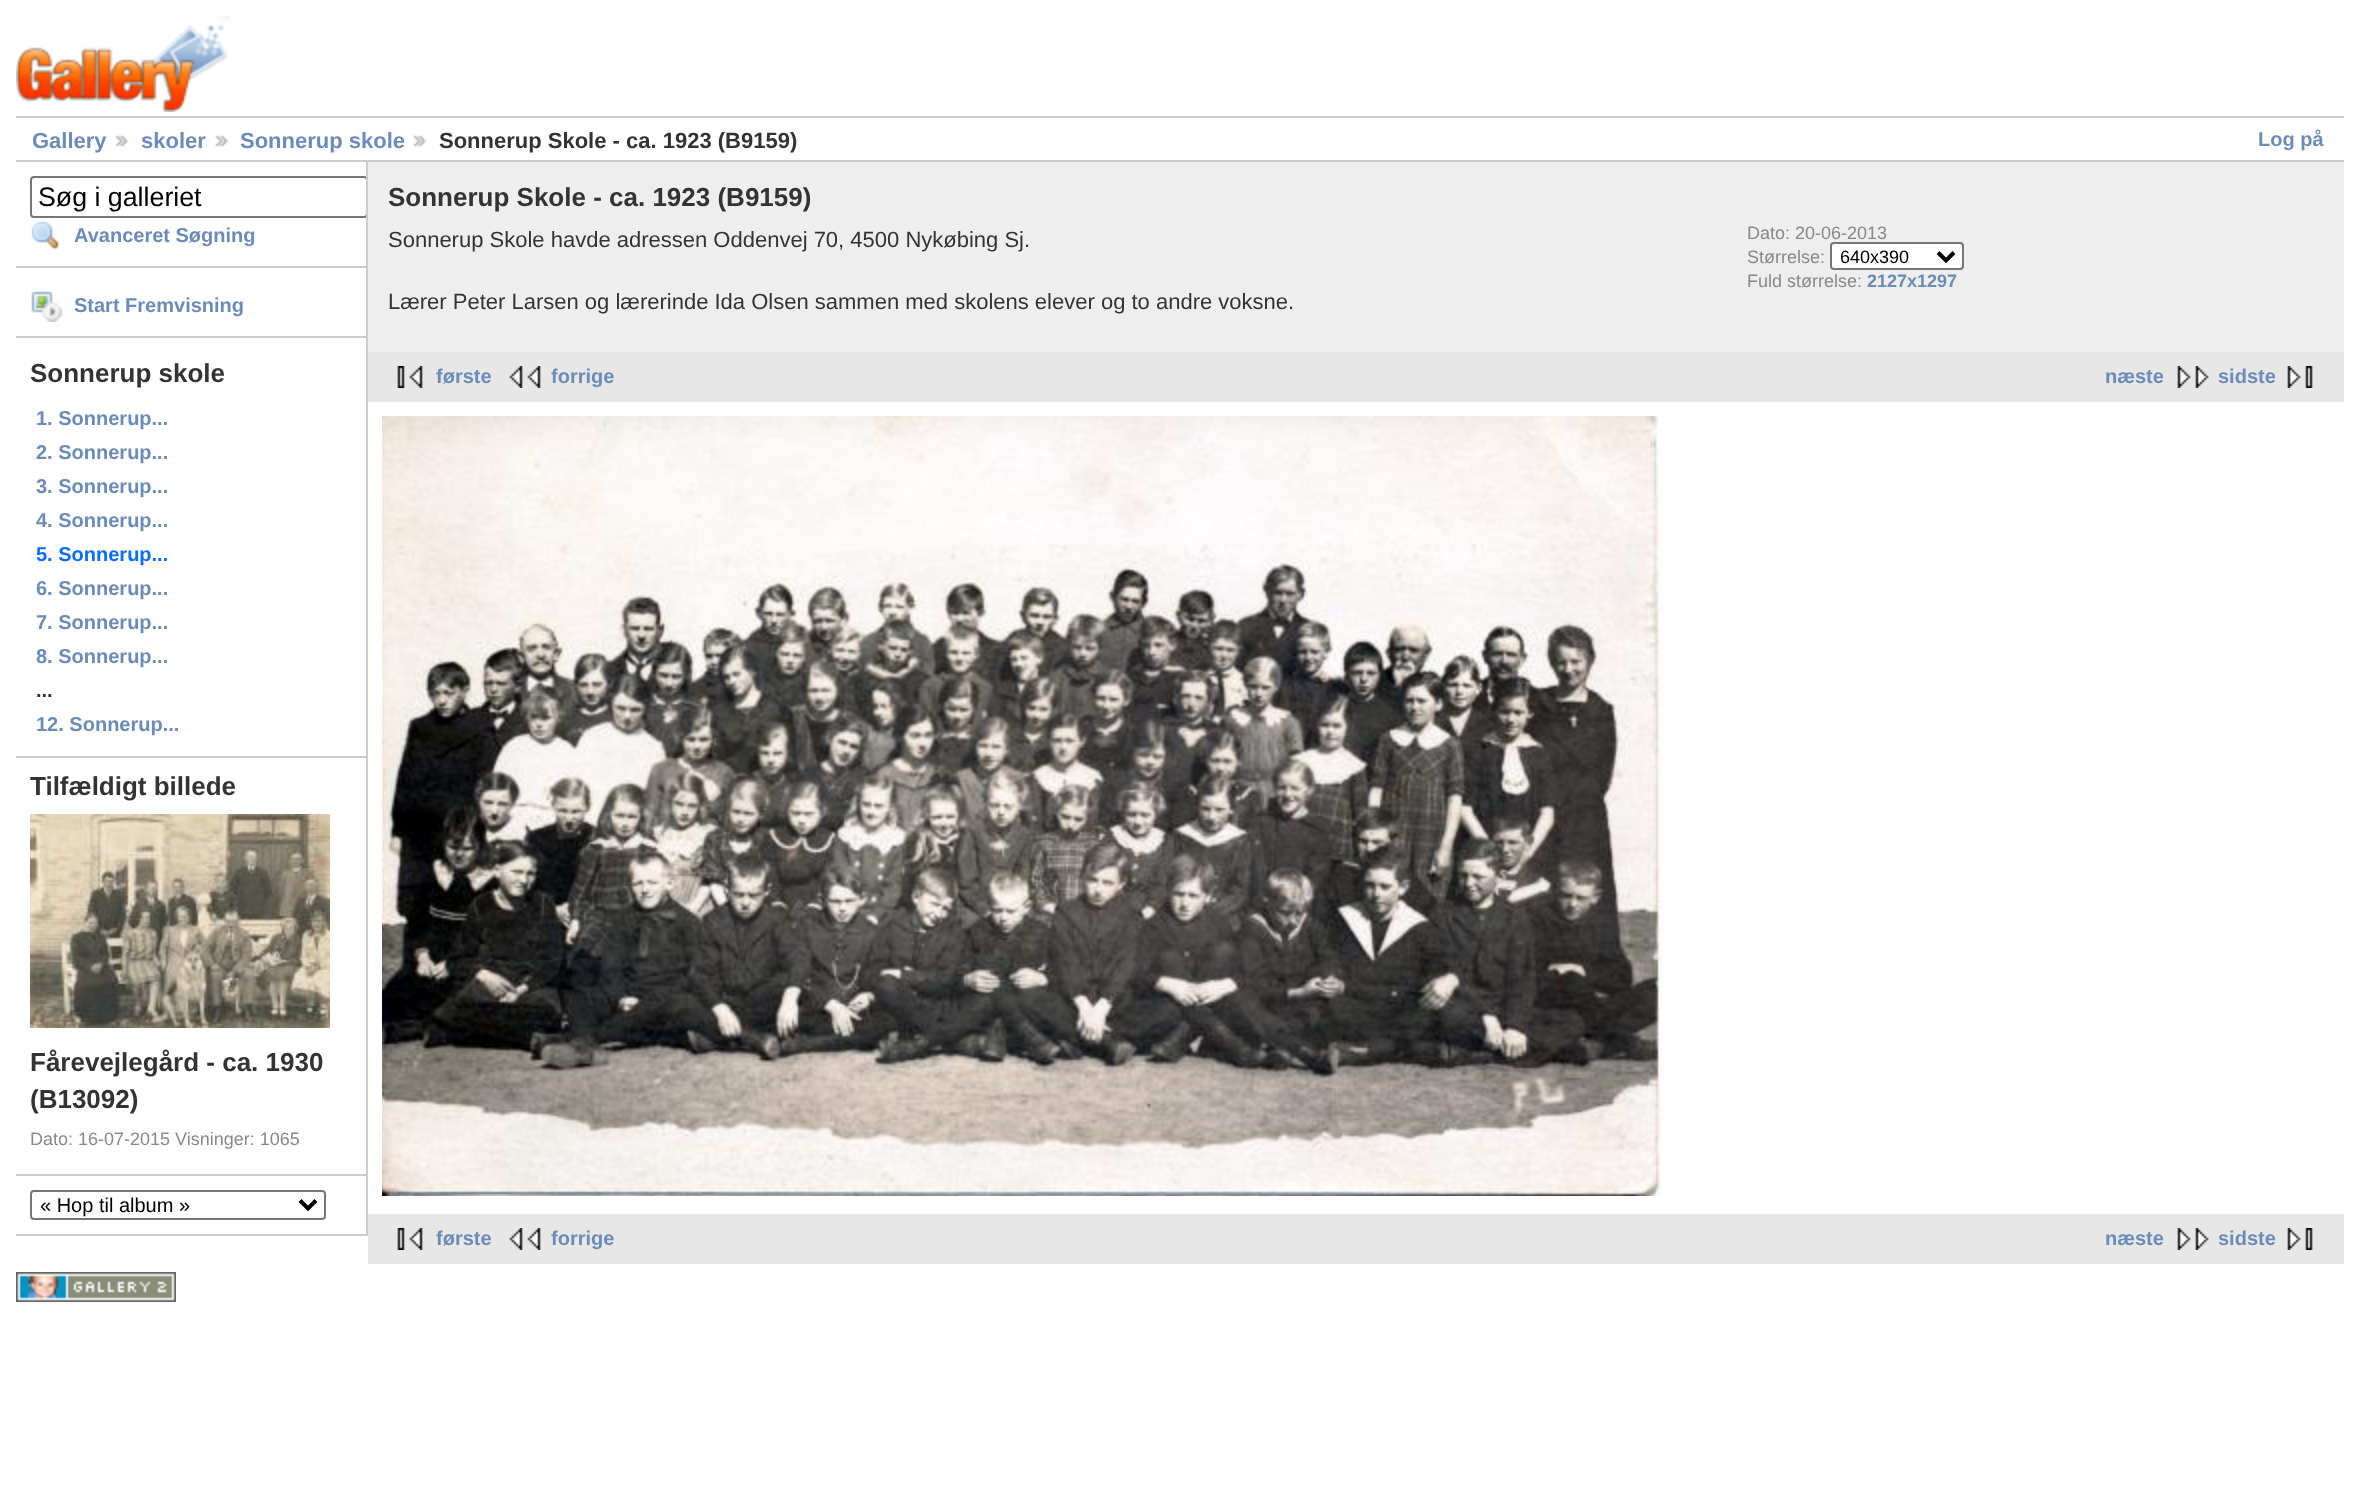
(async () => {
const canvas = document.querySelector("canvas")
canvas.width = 2360
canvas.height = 1486
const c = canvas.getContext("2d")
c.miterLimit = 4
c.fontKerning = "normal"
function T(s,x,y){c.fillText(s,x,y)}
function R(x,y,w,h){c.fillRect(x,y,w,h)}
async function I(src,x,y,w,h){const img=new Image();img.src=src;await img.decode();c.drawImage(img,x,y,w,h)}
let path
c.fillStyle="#fff"
R(0,0,2360,1486)
await I("1.png",16,16,214,96)
c.fillStyle="#ccc"
R(16,116,2328,2)
R(16,160,2328,2)
c.font="bold 22px Liberation Sans"
c.fillStyle="#6b8cb7"
T("Gallery",32,148)
await I("2.png",115,135,14,12)
T("skoler",141,148)
await I("2.png",215,135,14,12)
T("Sonnerup skole",240,148)
await I("2.png",413,135,14,12)
c.fillStyle="#333"
T("Sonnerup Skole - ca. 1923 (B9159)",439,148)
c.font="bold 20px Liberation Sans"
c.fillStyle="#6b8cb7"
T("Log på",2258,146)
c.fillStyle="#ccc"
R(366,162,2,1074)
R(16,266,350,2)
c.save()
c.beginPath()
c.rect(16,162,350,1074)
c.clip()
c.beginPath()
c.roundRect(31,177,336,40,3)
c.strokeStyle="#767676"
c.lineWidth=2
c.stroke()
c.restore()
c.font="26.75px Liberation Sans"
c.fillStyle="#000"
T("Søg i galleriet",38,206)
await I("3.png",31,221,28,29)
c.font="bold 20px Liberation Sans"
c.fillStyle="#6b8cb7"
T("Avanceret Søgning",74,242)
c.fillStyle="#ccc"
R(16,336,350,2)
await I("4.png",31,291,31,31)
c.fillStyle="#6b8cb7"
T("Start Fremvisning",74,312)
c.fillStyle="#ccc"
R(16,756,350,2)
c.font="bold 26px Liberation Sans"
c.fillStyle="#333"
T("Sonnerup skole",30,382)
c.font="bold 20px Liberation Sans"
c.fillStyle="#6b8cb7"
T("1. Sonnerup...",36,425)
T("2. Sonnerup...",36,459)
T("3. Sonnerup...",36,493)
T("4. Sonnerup...",36,527)
c.fillStyle="#0b6cff"
T("5. Sonnerup...",36,561)
c.fillStyle="#6b8cb7"
T("6. Sonnerup...",36,595)
T("7. Sonnerup...",36,629)
T("8. Sonnerup...",36,663)
c.fillStyle="#333"
T("...",36,697)
c.fillStyle="#6b8cb7"
T("12. Sonnerup...",36,731)
c.fillStyle="#ccc"
R(16,1174,350,2)
c.font="bold 26px Liberation Sans"
c.fillStyle="#333"
T("Tilfældigt billede",30,795)
await I("5.png",30,814,300,214)
T("Fårevejlegård - ca. 1930",30,1071)
T("(B13092)",30,1108)
c.font="18px Liberation Sans"
c.fillStyle="#888"
T("Dato: 16-07-2015 Visninger: 1065",30,1145)
c.fillStyle="#ccc"
R(16,1234,350,2)
c.beginPath()
c.roundRect(31,1191,294,28,3)
c.strokeStyle="#767676"
c.lineWidth=2
c.stroke()
path = new Path2D("M300 1200.5l8 8l8-8")
c.strokeStyle="#000"
c.lineWidth=4
c.stroke(path)
c.font="20px Liberation Sans"
c.fillStyle="#000"
T("« Hop til album »",40,1212)
c.fillStyle="#eee"
R(368,162,1976,190)
c.font="bold 26px Liberation Sans"
c.fillStyle="#333"
T("Sonnerup Skole - ca. 1923 (B9159)",388,206)
c.font="22px Liberation Sans"
T("Sonnerup Skole havde adressen Oddenvej 70, 4500 Nykøbing Sj.",388,247)
T("Lærer Peter Larsen og lærerinde Ida Olsen sammen med skolens elever og to andre voksne.",388,309)
c.font="18px Liberation Sans"
c.fillStyle="#888"
T("Dato: 20-06-2013",1747,239)
T("Størrelse:",1747,263)
c.fillStyle="#fff"
c.beginPath()
c.roundRect(1831,243,132,26,3)
c.fill()
c.strokeStyle="#767676"
c.lineWidth=2
c.stroke()
path = new Path2D("M1938 252.5l8 8l8-8")
c.strokeStyle="#000"
c.lineWidth=4
c.stroke(path)
c.fillStyle="#000"
T("640x390",1840,263)
c.fillStyle="#888"
T("Fuld størrelse:",1747,287)
c.font="bold 18px Liberation Sans"
c.fillStyle="#6b8cb7"
T("2127x1297",1867,287)
c.fillStyle="#e7e7e7"
R(368,352,1976,50)
await I("6.png",397,366,26,22)
c.font="bold 20px Liberation Sans"
c.fillStyle="#6b8cb7"
T("første",436,383)
await I("7.png",509,366,32,22)
T("forrige",551,383)
T("næste",2105,383)
await I("8.png",2177,366,32,22)
T("sidste",2218,383)
await I("9.png",2287,366,26,22)
await I("10.png",382,416,1280,780)
c.fillStyle="#e7e7e7"
R(368,1214,1976,50)
await I("6.png",397,1228,26,22)
c.fillStyle="#6b8cb7"
T("første",436,1245)
await I("7.png",509,1228,32,22)
T("forrige",551,1245)
T("næste",2105,1245)
await I("8.png",2177,1228,32,22)
T("sidste",2218,1245)
await I("9.png",2287,1228,26,22)
await I("11.png",16,1272,160,30)
})()
